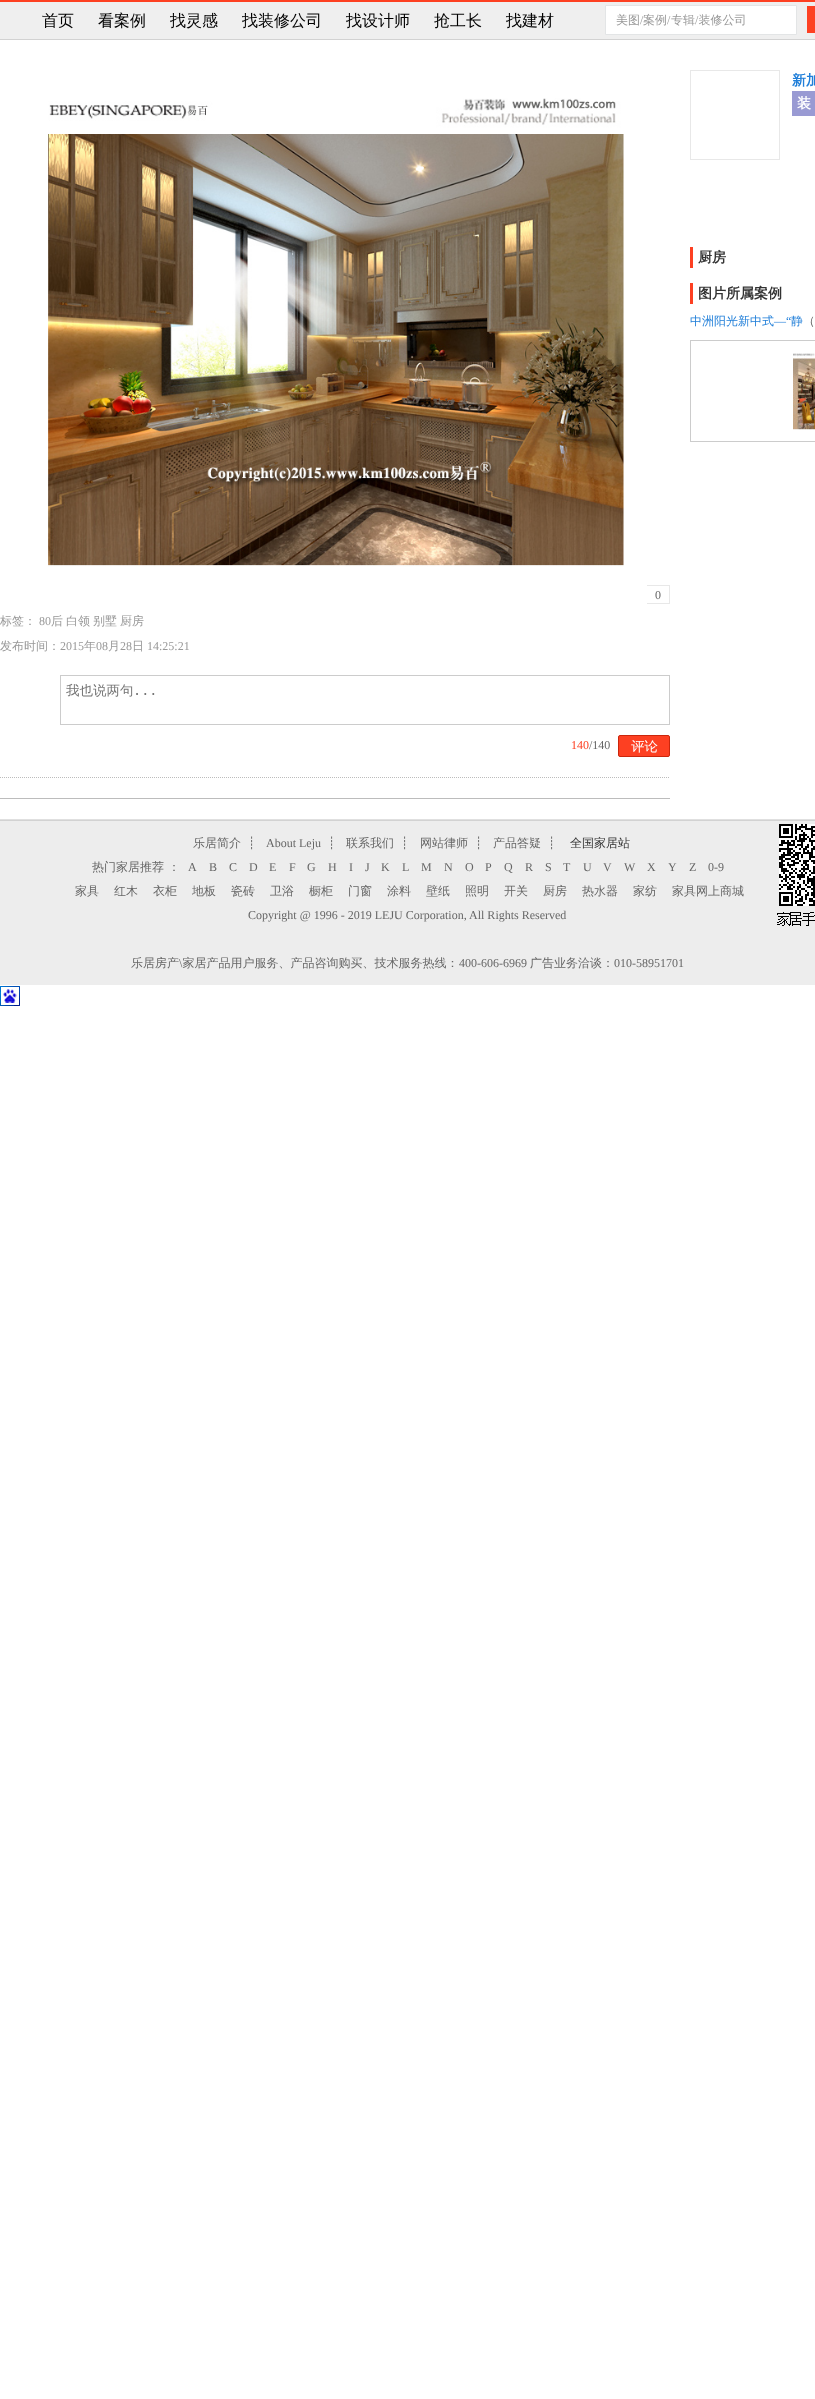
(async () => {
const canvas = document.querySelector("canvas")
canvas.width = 815
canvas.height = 2399
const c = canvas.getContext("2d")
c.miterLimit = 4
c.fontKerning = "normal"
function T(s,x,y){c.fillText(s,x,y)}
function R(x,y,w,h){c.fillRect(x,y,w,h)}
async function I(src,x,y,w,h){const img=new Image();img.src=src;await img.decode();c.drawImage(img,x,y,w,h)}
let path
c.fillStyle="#fff"
R(0,0,815,2399)
c.fillStyle="#efefef"
R(0,2,815,37)
c.fillStyle="#fd4022"
R(0,0,815,2)
c.fillStyle="#d2d2d2"
R(0,39,815,1)
c.font="500 16px WenQuanYi Zen Hei"
c.fillStyle="#010000"
T("首页",42,26)
T("看案例",98,26)
T("找灵感",170,26)
T("找装修公司",242,26)
T("找设计师",346,26)
T("抢工长",434,26)
T("找建材",506,26)
c.fillStyle="#fff"
c.beginPath()
c.rect(605.5,5.5,191,29)
c.fill()
c.strokeStyle="#e3e5e6"
c.stroke()
c.font="500 12px WenQuanYi Zen Hei"
c.fillStyle="#999"
T("美图",616,24)
c.font="12px Liberation Serif"
T("/",640,24)
c.font="500 12px WenQuanYi Zen Hei"
T("案例",643,24)
c.font="12px Liberation Serif"
T("/",667,24)
c.font="500 12px WenQuanYi Zen Hei"
T("专辑 装修公司",671,24)
c.font="12px Liberation Serif"
T("/",695,24)
c.fillStyle="#fd4022"
R(807,6,8,27)
c.strokeStyle="#e8e8e8"
c.strokeRect(690.5,70.5,89,89)
c.font="bold 14px WenQuanYi Zen Hei"
c.fillStyle="#217fd9"
T("新加",792,85)
c.fillStyle="#999ad3"
R(792,91,23,25)
c.fillStyle="#fff"
T("装",797,108)
c.fillStyle="#fd4022"
R(690,247,3,21)
c.fillStyle="#333"
T("厨房",698,262)
c.fillStyle="#fd4022"
R(690,283,3,21)
c.fillStyle="#333"
T("图片所属案例",698,298)
c.font="500 12px WenQuanYi Zen Hei"
c.fillStyle="#217fd9"
T("中洲阳光新中式",690,325)
c.font="12px Liberation Serif"
T("—“",774,325)
c.font="500 12px WenQuanYi Zen Hei"
T("静",791,325)
c.fillStyle="#666"
T("（",803,325)
c.strokeStyle="#ccc"
c.strokeRect(690.5,340.5,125,101)
await I("1.png",793,353,22,77)
await I("2.png",48,98,576,469)
c.fillStyle="#e8e8e8"
R(647,585,23,1)
R(669,585,1,19)
R(647,603,23,1)
c.font="12px Liberation Serif"
c.fillStyle="#666"
T("0",655,599)
c.font="500 12px WenQuanYi Zen Hei"
c.fillStyle="#999"
T("标签：",0,625)
c.font="12px Liberation Serif"
T("80",39,625)
c.font="500 12px WenQuanYi Zen Hei"
T("后",51,625)
T("白领",66,625)
T("别墅",93,625)
T("厨房",120,625)
T("发布时间：",0,650)
c.font="12px Liberation Serif"
T("2015",60,650)
c.font="500 12px WenQuanYi Zen Hei"
T("年",84,650)
c.font="12px Liberation Serif"
T("08",96,650)
c.font="500 12px WenQuanYi Zen Hei"
T("月",108,650)
c.font="12px Liberation Serif"
T("28",120,650)
c.font="500 12px WenQuanYi Zen Hei"
T("日",132,650)
c.font="12px Liberation Serif"
T("14:25:21",147,650)
c.strokeRect(60.5,675.5,609,49)
c.font="500 13.5px WenQuanYi Zen Hei"
c.fillStyle="#757575"
T("我也说两句",66,695)
c.font="13.5px DejaVu Sans Mono"
T("...",133,695)
c.font="12px Liberation Serif"
c.fillStyle="#fd4022"
T("140",571,749)
c.fillStyle="#666"
T("/140",589,749)
c.fillStyle="#fd4022"
c.beginPath()
c.roundRect(618.5,735.5,51,21,1.5)
c.fill()
c.strokeStyle="#cb260c"
c.stroke()
c.font="500 13.5px WenQuanYi Zen Hei"
c.fillStyle="#fff"
T("评论",631,751)
path = new Path2D("M0 777.5h670")
c.strokeStyle="#bcbcbc"
c.setLineDash([1,1])
c.stroke(path)
c.fillStyle="#bcbcbc"
R(0,798,670,1)
c.fillStyle="#e0e0e0"
R(0,819,815,1)
c.fillStyle="#ededed"
R(0,821,815,164)
c.fillStyle="#d2d2d2"
R(0,820,815,1)
c.font="500 12px WenQuanYi Zen Hei"
c.fillStyle="#666"
T("乐居简介",193,847)
c.font="12px DejaVu Sans"
T("┊",248,847)
c.font="12px Liberation Serif"
T("About Leju",266,847)
c.font="12px DejaVu Sans"
T("┊",328,847)
c.font="500 12px WenQuanYi Zen Hei"
T("联系我们",346,847)
c.font="12px DejaVu Sans"
T("┊",401,847)
c.font="500 12px WenQuanYi Zen Hei"
T("网站律师",420,847)
c.font="12px DejaVu Sans"
T("┊",475,847)
c.font="500 12px WenQuanYi Zen Hei"
T("产品答疑",493,847)
c.font="12px DejaVu Sans"
T("┊",548,847)
c.font="500 12px WenQuanYi Zen Hei"
c.fillStyle="#333"
T("全国家居站",570,847)
await I("3.png",777,824,38,102)
c.fillStyle="#666"
T("热门家居推荐",92,871)
T("：",168,871)
c.font="12px Liberation Serif"
T("A",188,871)
T("B",209,871)
T("C",229,871)
T("D",249,871)
T("E",269,871)
T("F",289,871)
T("G",307,871)
T("H",328,871)
T("I",349,871)
T("J",365,871)
T("K",381,871)
T("L",402,871)
T("M",421,871)
T("N",444,871)
T("O",465,871)
T("P",485,871)
T("Q",504,871)
T("R",525,871)
T("S",545,871)
T("T",563,871)
T("U",583,871)
T("V",603,871)
T("W",624,871)
T("X",647,871)
T("Y",668,871)
T("Z",689,871)
T("0-9",708,871)
c.font="500 12px WenQuanYi Zen Hei"
T("家具",75,895)
T("红木",114,895)
T("衣柜",153,895)
T("地板",192,895)
T("瓷砖",231,895)
T("卫浴",270,895)
T("橱柜",309,895)
T("门窗",348,895)
T("涂料",387,895)
T("壁纸",426,895)
T("照明",465,895)
T("开关",504,895)
T("厨房",543,895)
T("热水器",582,895)
T("家纺",633,895)
T("家具网上商城",672,895)
c.font="12px Liberation Serif"
T("Copyright @ 1996 - 2019 LEJU Corporation, All Rights Reserved",248,919)
c.font="500 12px WenQuanYi Zen Hei"
T("乐居房产 家居产品用户服务、产品咨询购买、技术服务热线：",131,967)
T("广告业务洽谈：",530,967)
c.font="12px Liberation Serif"
T("\\",179,967)
T("400-606-6969",459,967)
T("010-58951701",614,967)
await I("4.png",0,986,20,20)
})()
